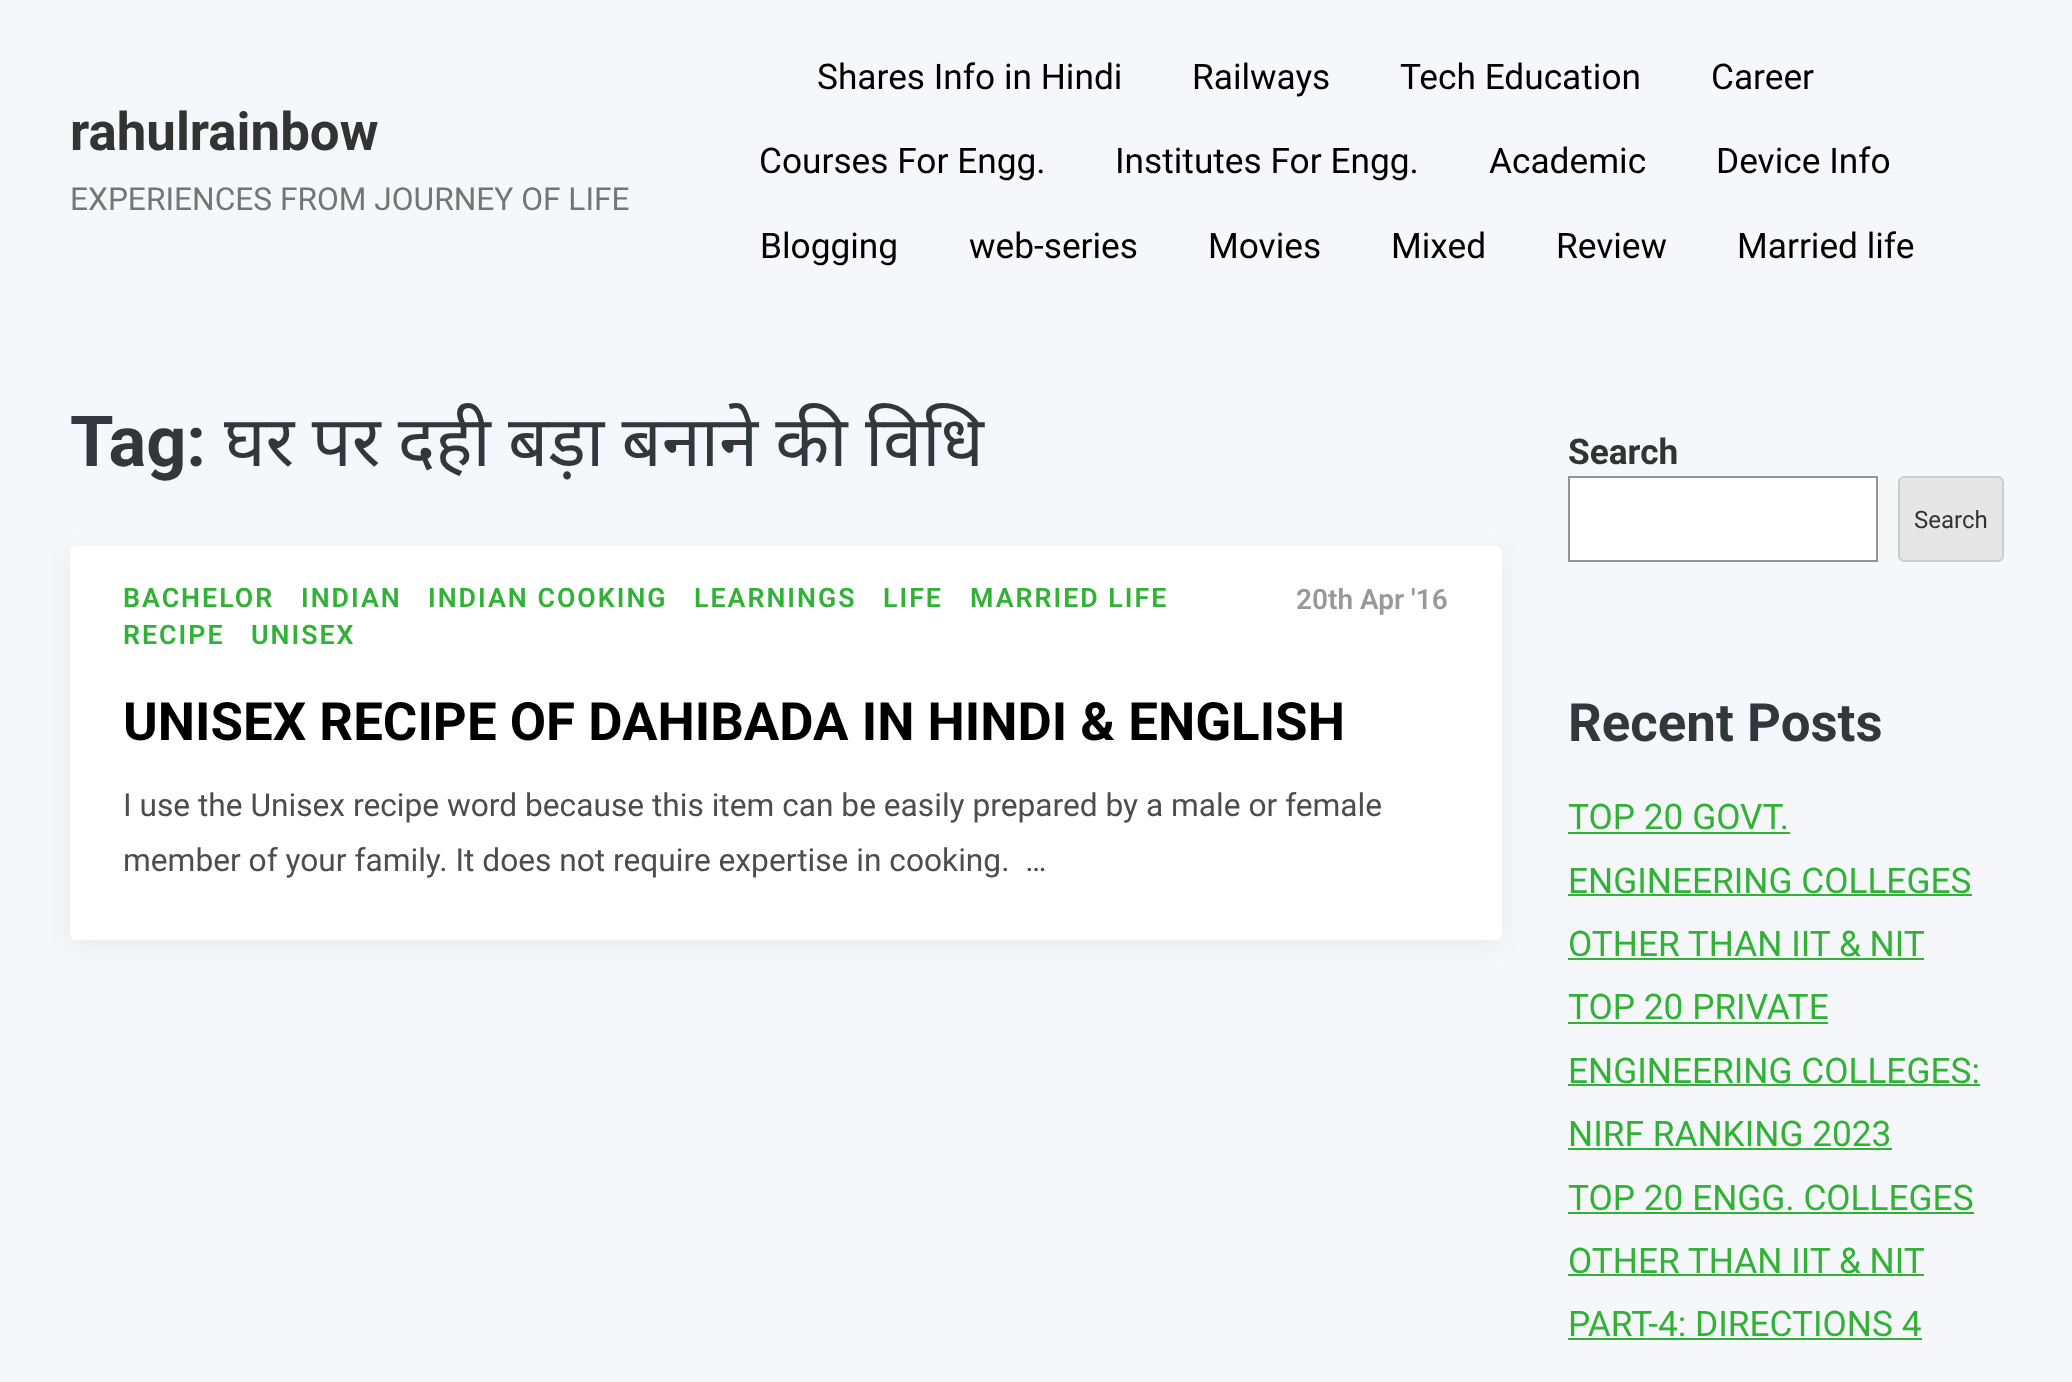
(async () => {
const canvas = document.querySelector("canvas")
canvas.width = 2072
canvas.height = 1382
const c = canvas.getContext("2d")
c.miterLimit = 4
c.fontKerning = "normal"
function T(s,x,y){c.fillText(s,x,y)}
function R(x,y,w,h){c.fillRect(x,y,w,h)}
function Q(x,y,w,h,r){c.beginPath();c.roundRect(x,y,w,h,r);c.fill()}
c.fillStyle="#f5f7fa"
R(0,0,2072,1382)
c.font="bold 52.8px Roboto"
c.fillStyle="#333"
T("rahulrainbow",70,150)
c.font="31.7px Roboto"
c.fillStyle="#757575"
T("EXPERIENCES FROM JOURNEY OF LIFE",70,210)
c.font="35.25px Roboto"
c.fillStyle="#000"
T("Shares Info in Hindi",817,89)
T("Railways",1192,89)
T("Tech Education",1400,89)
T("Career",1711,89)
T("Courses For Engg.",759,173)
T("Institutes For Engg.",1115,173)
T("Academic",1489,173)
T("Device Info",1716,173)
T("Blogging",760,258)
T("web-series",969,258)
T("Movies",1208,258)
T("Mixed",1391,258)
T("Review",1556,258)
T("Married life",1737,258)
c.font="bold 70.4px Roboto"
c.fillStyle="#32373c"
T("Tag:",70,466)
c.wordSpacing="-1px"
c.font="70.4px Noto Sans"
T("घर पर दही बड़ा बनाने की विधि",224,466)
c.fillStyle="#0000000d"
c.filter="blur(12px)"
c.beginPath()
c.roundRect(70,552,1432,394,6)
c.fill()
c.filter="none"
c.fillStyle="#fff"
Q(70,546,1432,394,6)
c.letterSpacing="2px"
c.wordSpacing="0px"
c.font="600 26.75px Roboto"
c.fillStyle="#31b237"
T("BACHELOR",123,607)
T("INDIAN",301,607)
T("INDIAN COOKING",428,607)
T("LEARNINGS",694,607)
T("LIFE",883,607)
T("MARRIED LIFE",970,607)
T("RECIPE",123,644)
T("UNISEX",251,644)
c.letterSpacing="0px"
c.font="600 28px Roboto"
c.fillStyle="#999"
T("20th Apr '16",1296,609)
c.font="bold 52.8px Roboto"
c.fillStyle="#000"
T("UNISEX RECIPE OF DAHIBADA IN HINDI & ENGLISH",123,740)
c.font="31.7px Roboto"
c.fillStyle="#4d4d4d"
T("I use the Unisex recipe word because this item can be easily prepared by a male or female",123,816)
T("member of your family. It does not require expertise in cooking.  …",123,871)
c.font="bold 35.25px Roboto"
c.fillStyle="#333"
T("Search",1568,464)
c.fillStyle="#fff"
c.beginPath()
c.rect(1569,477,308,84)
c.fill()
c.strokeStyle="#949494"
c.lineWidth=2
c.stroke()
c.fillStyle="#e6e6e6"
c.beginPath()
c.roundRect(1899,477,104,84,5)
c.fill()
c.strokeStyle="#ccc"
c.stroke()
c.font="24px Roboto"
c.fillStyle="#333"
T("Search",1914,528)
c.font="bold 52.8px Roboto"
c.fillStyle="#32373c"
T("Recent Posts",1568,741)
c.font="35.25px Roboto"
c.fillStyle="#31b237"
T("TOP 20 GOVT.",1568,829)
R(1568,832,222,2)
T("ENGINEERING COLLEGES",1568,893)
R(1568,894,404,2)
T("OTHER THAN IIT & NIT",1568,956)
R(1568,958,356,2)
T("TOP 20 PRIVATE",1568,1019)
R(1568,1022,260,2)
T("ENGINEERING COLLEGES:",1568,1083)
R(1568,1084,412,2)
T("NIRF RANKING 2023",1568,1146)
R(1568,1148,324,2)
T("TOP 20 ENGG. COLLEGES",1568,1210)
R(1568,1212,406,2)
T("OTHER THAN IIT & NIT",1568,1273)
R(1568,1274,356,2)
T("PART-4: DIRECTIONS 4",1568,1336)
R(1568,1338,354,2)
})()
